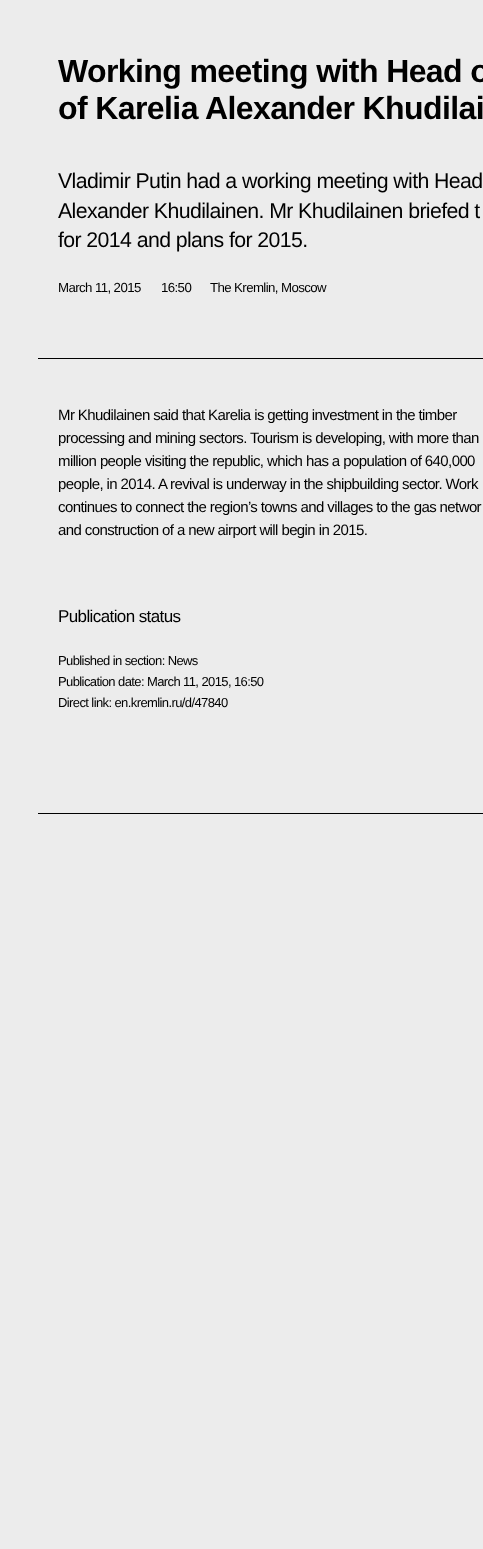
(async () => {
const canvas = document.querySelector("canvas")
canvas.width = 483
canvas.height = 1549
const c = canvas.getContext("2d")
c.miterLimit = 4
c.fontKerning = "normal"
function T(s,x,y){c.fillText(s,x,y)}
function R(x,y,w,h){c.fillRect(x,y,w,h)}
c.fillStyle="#ececec"
R(0,0,483,1549)
c.fillStyle="#000"
R(38,813,445,1)
R(38,358,445,1)
c.letterSpacing="-0.6px"
c.font="bold 32px Liberation Sans"
T("Working meeting with Head o",58,82)
T("of Karelia Alexander Khudilai",58,119)
c.font="21.3px Liberation Sans"
T("Vladimir Putin had a working meeting with Head",58,188)
T("Alexander Khudilainen. Mr Khudilainen briefed t",58,218)
T("for 2014 and plans for 2015.",58,247)
c.font="13.25px Liberation Sans"
T("March 11, 2015",58,292)
T("16:50",161,292)
T("The Kremlin, Moscow",210,292)
c.font="15px Liberation Sans"
T("Mr Khudilainen said that Karelia is getting investment in the timber",58,420)
T("processing and mining sectors. Tourism is developing, with more than",58,443)
T("million people visiting the republic, which has a population of 640,000",58,466)
T("people, in 2014. A revival is underway in the shipbuilding sector. Work",58,489)
T("continues to connect the region’s towns and villages to the gas networ",58,512)
T("and construction of a new airport will begin in 2015.",58,535)
c.font="17px Liberation Sans"
T("Publication status",58,622)
c.font="13px Liberation Sans"
T("Published in section: News",58,665)
T("Publication date: March 11, 2015, 16:50",58,686)
T("Direct link: en.kremlin.ru/d/47840",58,707)
})()
